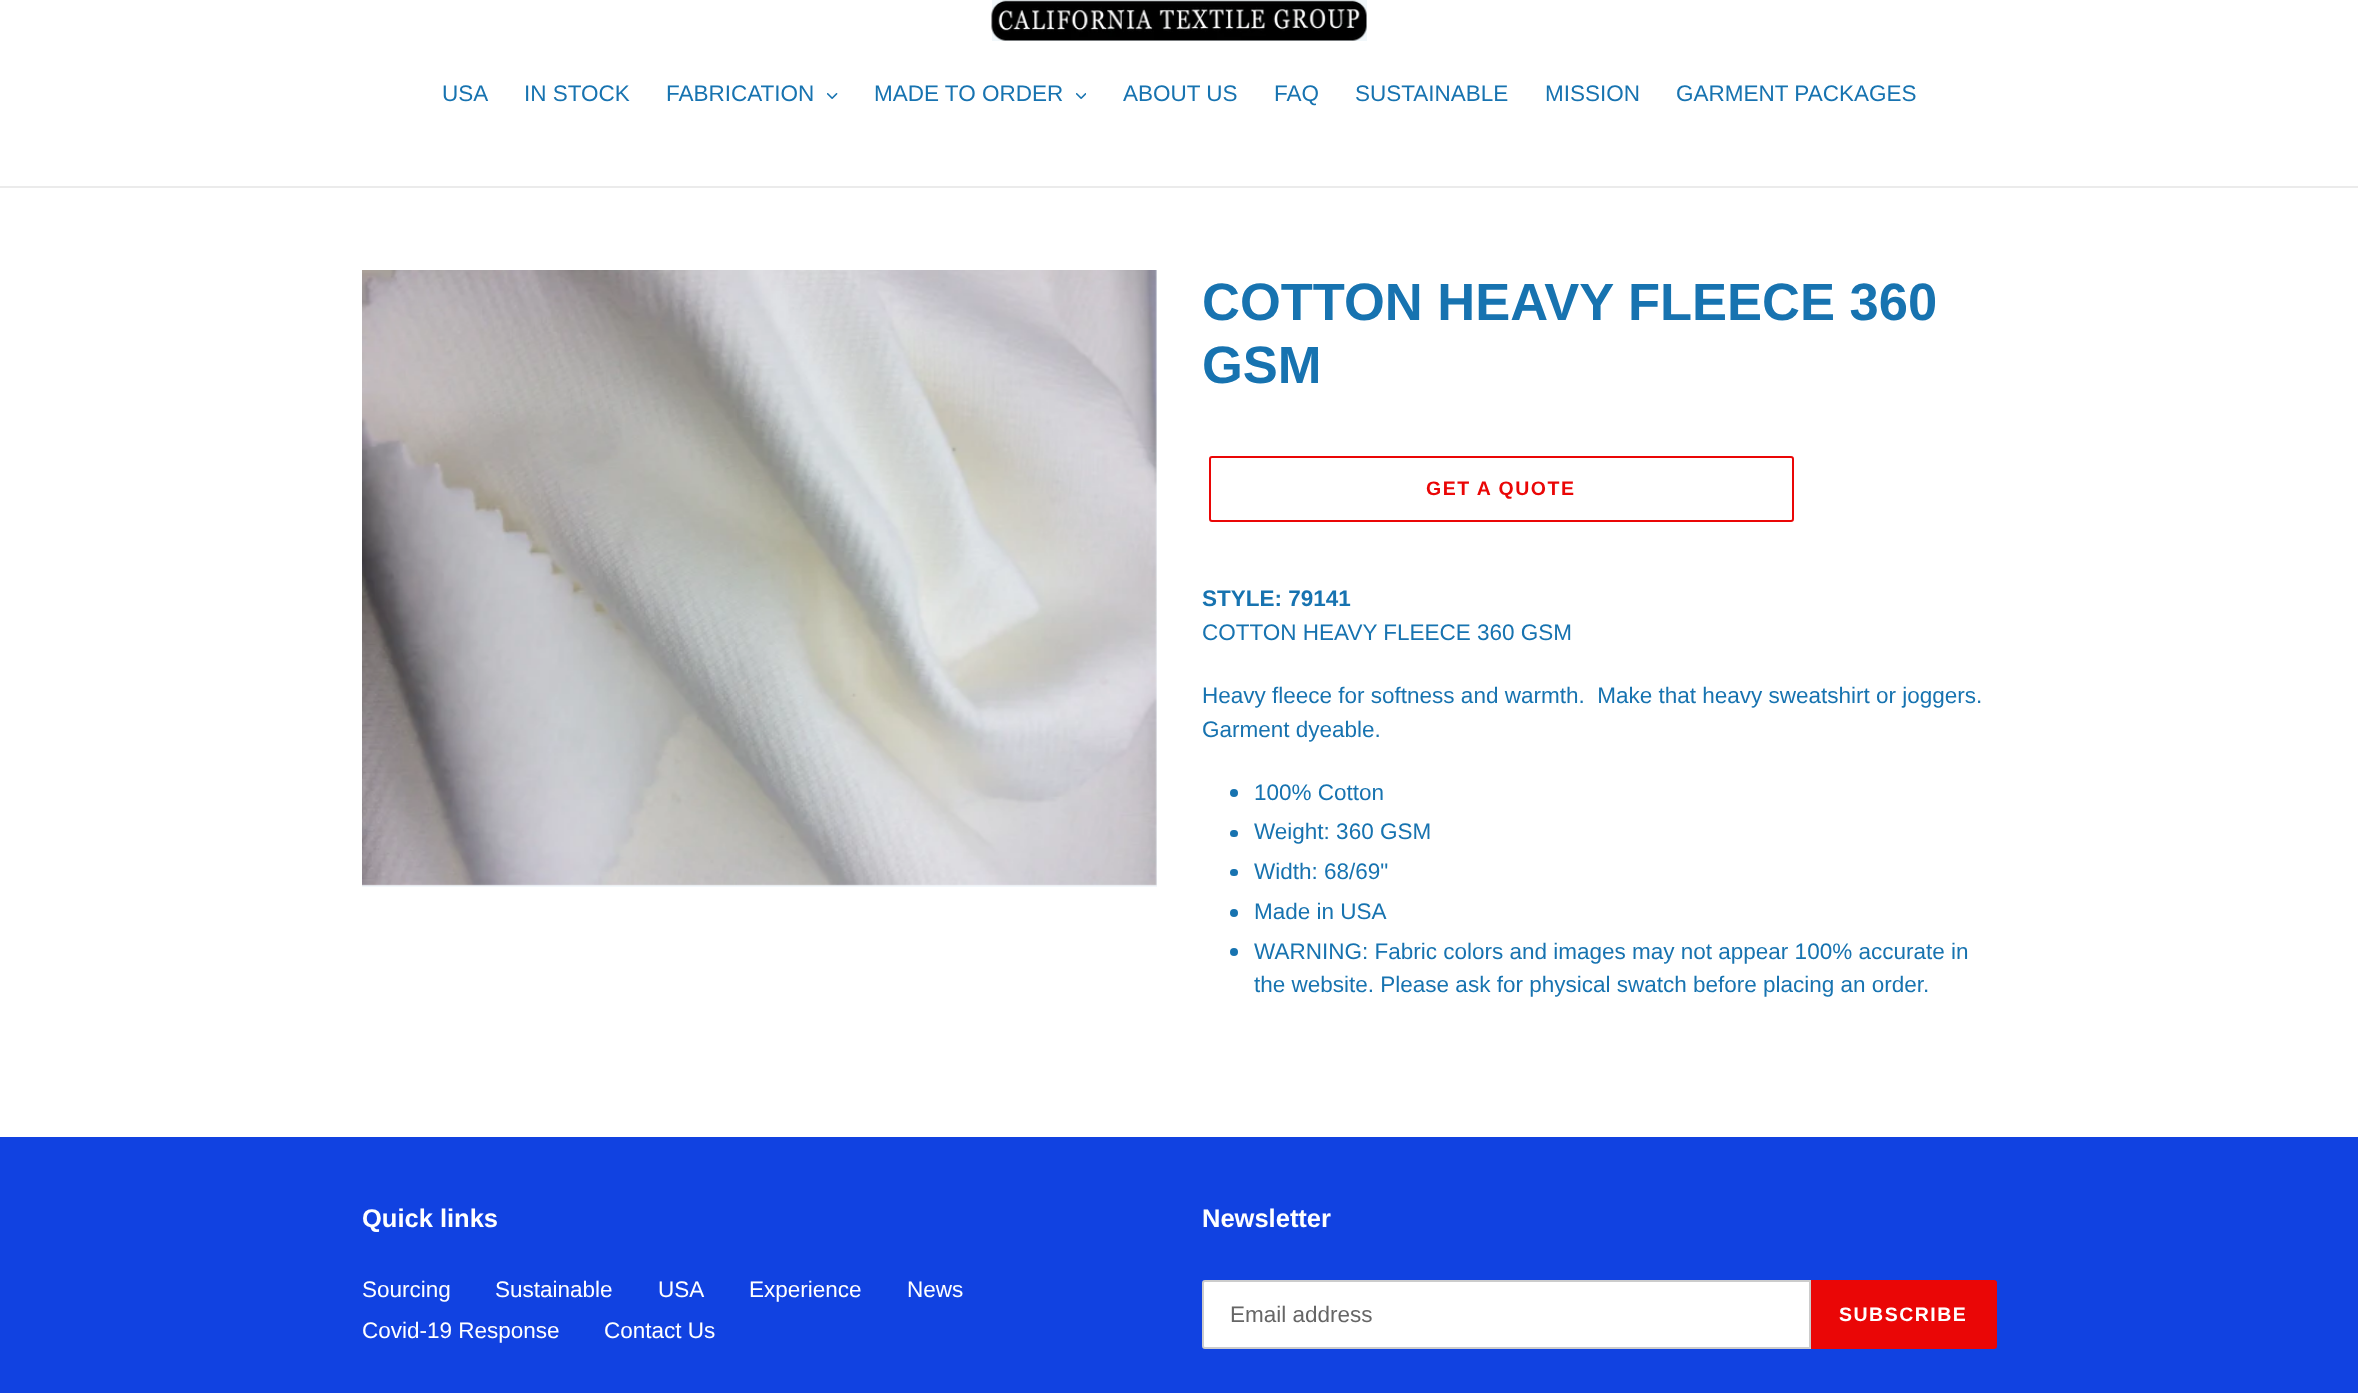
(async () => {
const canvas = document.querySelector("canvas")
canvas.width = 2358
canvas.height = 1393
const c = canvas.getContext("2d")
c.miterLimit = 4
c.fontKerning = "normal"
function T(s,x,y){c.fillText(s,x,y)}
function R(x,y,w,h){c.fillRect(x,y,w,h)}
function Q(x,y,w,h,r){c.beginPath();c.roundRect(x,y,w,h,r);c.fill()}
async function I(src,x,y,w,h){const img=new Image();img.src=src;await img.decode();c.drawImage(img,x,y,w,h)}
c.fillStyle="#fff"
R(0,0,2358,1393)
c.fillStyle="#f1f7fa"
R(992,0,375,41)
await I("1.png",991,0,376,41)
c.fillStyle="#ebebeb"
R(0,186,2358,2)
c.font="22.5px Liberation Sans"
c.fillStyle="#1773b0"
T("USA",442,101)
T("IN STOCK",524,101)
T("FABRICATION",666,101)
await I("2.png",827,93,11,6)
T("MADE TO ORDER",874,101)
await I("3.png",1076,93,10,6)
T("ABOUT US",1123,101)
T("FAQ",1274,101)
T("SUSTAINABLE",1355,101)
T("MISSION",1545,101)
T("GARMENT PACKAGES",1676,101)
c.fillStyle="#f2f7fb"
R(362,270,795,617)
await I("4.png",362,270,795,616)
c.font="bold 52.5px Liberation Sans"
c.fillStyle="#1773b0"
T("COTTON HEAVY FLEECE 360",1202,320)
T("GSM",1202,383)
c.beginPath()
c.roundRect(1210,457,583,64,2)
c.strokeStyle="#ea0606"
c.lineWidth=2
c.stroke()
c.letterSpacing="1.5px"
c.font="bold 19.5px Liberation Sans"
c.fillStyle="#ea0606"
T("GET A QUOTE",1426,495)
c.letterSpacing="0px"
c.font="bold 22.5px Liberation Sans"
c.fillStyle="#1773b0"
T("STYLE: 79141",1202,606)
c.font="22.5px Liberation Sans"
T("COTTON HEAVY FLEECE 360 GSM",1202,640)
T("Heavy fleece for softness and warmth.  Make that heavy sweatshirt or joggers.",1202,703)
T("Garment dyeable.",1202,737)
c.beginPath()
c.arc(1234,793,4,0,7)
c.fill()
T("100% Cotton",1254,800)
Q(1230,830,8,7,3.5)
T("Weight: 360 GSM",1254,839)
Q(1230,869,8,7,3.5)
T("Width: 68/69\"",1254,879)
c.beginPath()
c.arc(1234,913,4,0,7)
c.fill()
T("Made in USA",1254,919)
c.beginPath()
c.arc(1234,952,4,0,7)
c.fill()
T("WARNING: Fabric colors and images may not appear 100% accurate in",1254,959)
T("the website. Please ask for physical swatch before placing an order.",1254,992)
c.fillStyle="#1142e1"
R(0,1137,2358,256)
c.font="bold 25.5px Liberation Sans"
c.fillStyle="#fff"
T("Quick links",362,1227)
c.font="22.5px Liberation Sans"
T("Sourcing",362,1297)
T("Sustainable",495,1297)
T("USA",658,1297)
T("Experience",749,1297)
T("News",907,1297)
T("Covid-19 Response",362,1338)
T("Contact Us",604,1338)
c.font="bold 25.5px Liberation Sans"
T("Newsletter",1202,1227)
c.beginPath()
c.roundRect(1203,1281,607,67,[2,0,0,2])
c.fill()
c.strokeStyle="#ccc"
c.stroke()
c.font="22.5px Liberation Sans"
c.fillStyle="#666"
T("Email address",1230,1322)
c.fillStyle="#ea0606"
c.beginPath()
c.roundRect(1811,1280,186,69,[0,3,3,0])
c.fill()
c.letterSpacing="1.5px"
c.font="bold 19.5px Liberation Sans"
c.fillStyle="#fff"
T("SUBSCRIBE",1839,1321)
})()
